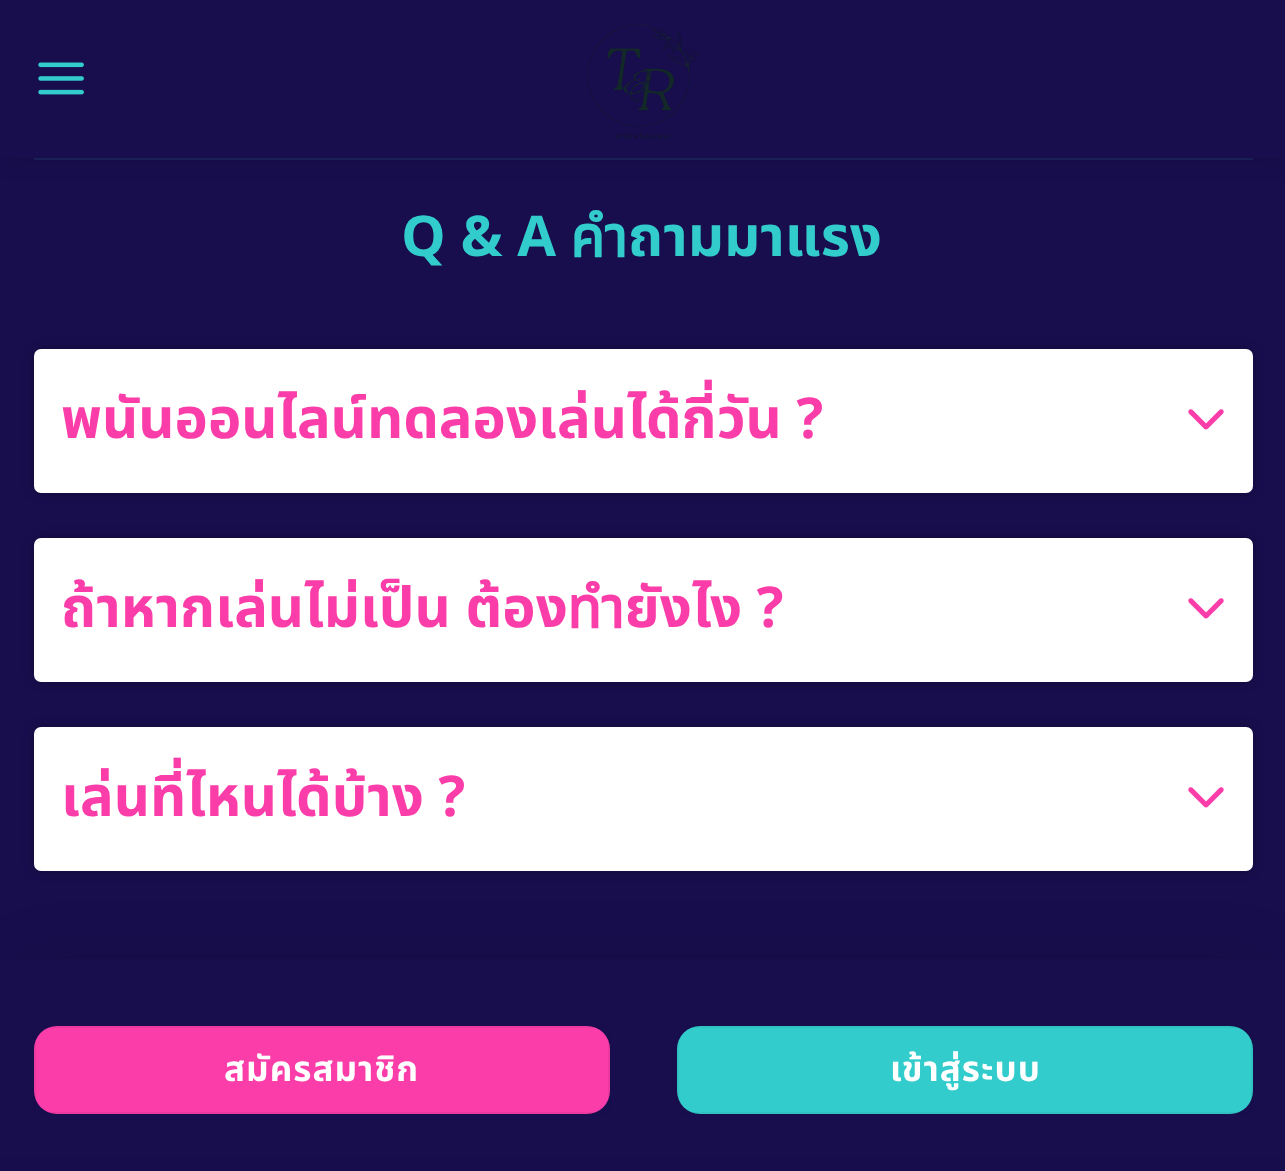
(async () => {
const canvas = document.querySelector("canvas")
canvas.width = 1285
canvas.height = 1171
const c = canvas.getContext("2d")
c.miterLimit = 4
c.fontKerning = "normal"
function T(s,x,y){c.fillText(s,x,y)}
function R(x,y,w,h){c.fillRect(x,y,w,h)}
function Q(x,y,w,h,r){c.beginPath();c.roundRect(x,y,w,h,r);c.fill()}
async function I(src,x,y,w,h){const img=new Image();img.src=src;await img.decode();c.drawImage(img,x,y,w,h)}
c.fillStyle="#180e4e"
R(0,0,1285,1171)
c.fillStyle="#00000026"
c.filter="blur(11px)"
c.beginPath()
c.rect(2,2,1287,158)
c.fill()
c.filter="none"
c.fillStyle="#180e4e"
R(0,0,1285,158)
await I("1.png",38,62,46,33)
await I("2.png",587,24,113,115)
c.fillStyle="#192055"
R(34,158,1219,2)
c.font="bold 56.25px Noto Sans Thai"
c.fillStyle="#3cc"
T("Q & A คำถามมาแรง",401,256)
c.fillStyle="#0000004d"
c.filter="blur(5.5px)"
c.beginPath()
c.roundRect(34,349,1219,144,7)
c.fill()
c.filter="none"
c.fillStyle="#fff"
Q(34,349,1219,144,7)
c.fillStyle="#fa3da8"
T("พนันออนไลน์ทดลองเล่นได้กี่วัน ?",61,438)
await I("3.png",1188,409,36,21)
c.fillStyle="#0000004d"
c.filter="blur(5.5px)"
c.beginPath()
c.roundRect(34,538,1219,144,7)
c.fill()
c.filter="none"
c.fillStyle="#fff"
Q(34,538,1219,144,7)
c.fillStyle="#fa3da8"
T("ถ้าหากเล่นไม่เป็น ต้องทำยังไง ?",61,627)
await I("3.png",1188,598,36,21)
c.fillStyle="#0000004d"
c.filter="blur(5.5px)"
c.beginPath()
c.roundRect(34,727,1219,144,7)
c.fill()
c.filter="none"
c.fillStyle="#fff"
Q(34,727,1219,144,7)
c.fillStyle="#fa3da8"
T("เล่นที่ไหนได้บ้าง ?",61,816)
await I("3.png",1188,787,36,21)
c.fillStyle="#00000033"
c.filter="blur(32.5px)"
c.beginPath()
c.rect(27,968,1233,159)
c.fill()
c.filter="none"
c.fillStyle="#180e4e"
R(0,959,1285,199)
c.fillStyle="#fa3da8"
Q(34,1026,576,88,23)
c.strokeStyle="#0000000d"
c.lineWidth=2
c.strokeRect(35,1027,574,86)
c.letterSpacing="1px"
c.font="bold 35px Noto Sans Thai"
c.fillStyle="#fff"
T("สมัครสมาชิก",224,1081)
c.fillStyle="#3cc"
Q(677,1026,576,88,23)
c.strokeRect(678,1027,574,86)
c.fillStyle="#fff"
T("เข้าสู่ระบบ",890,1081)
})()
